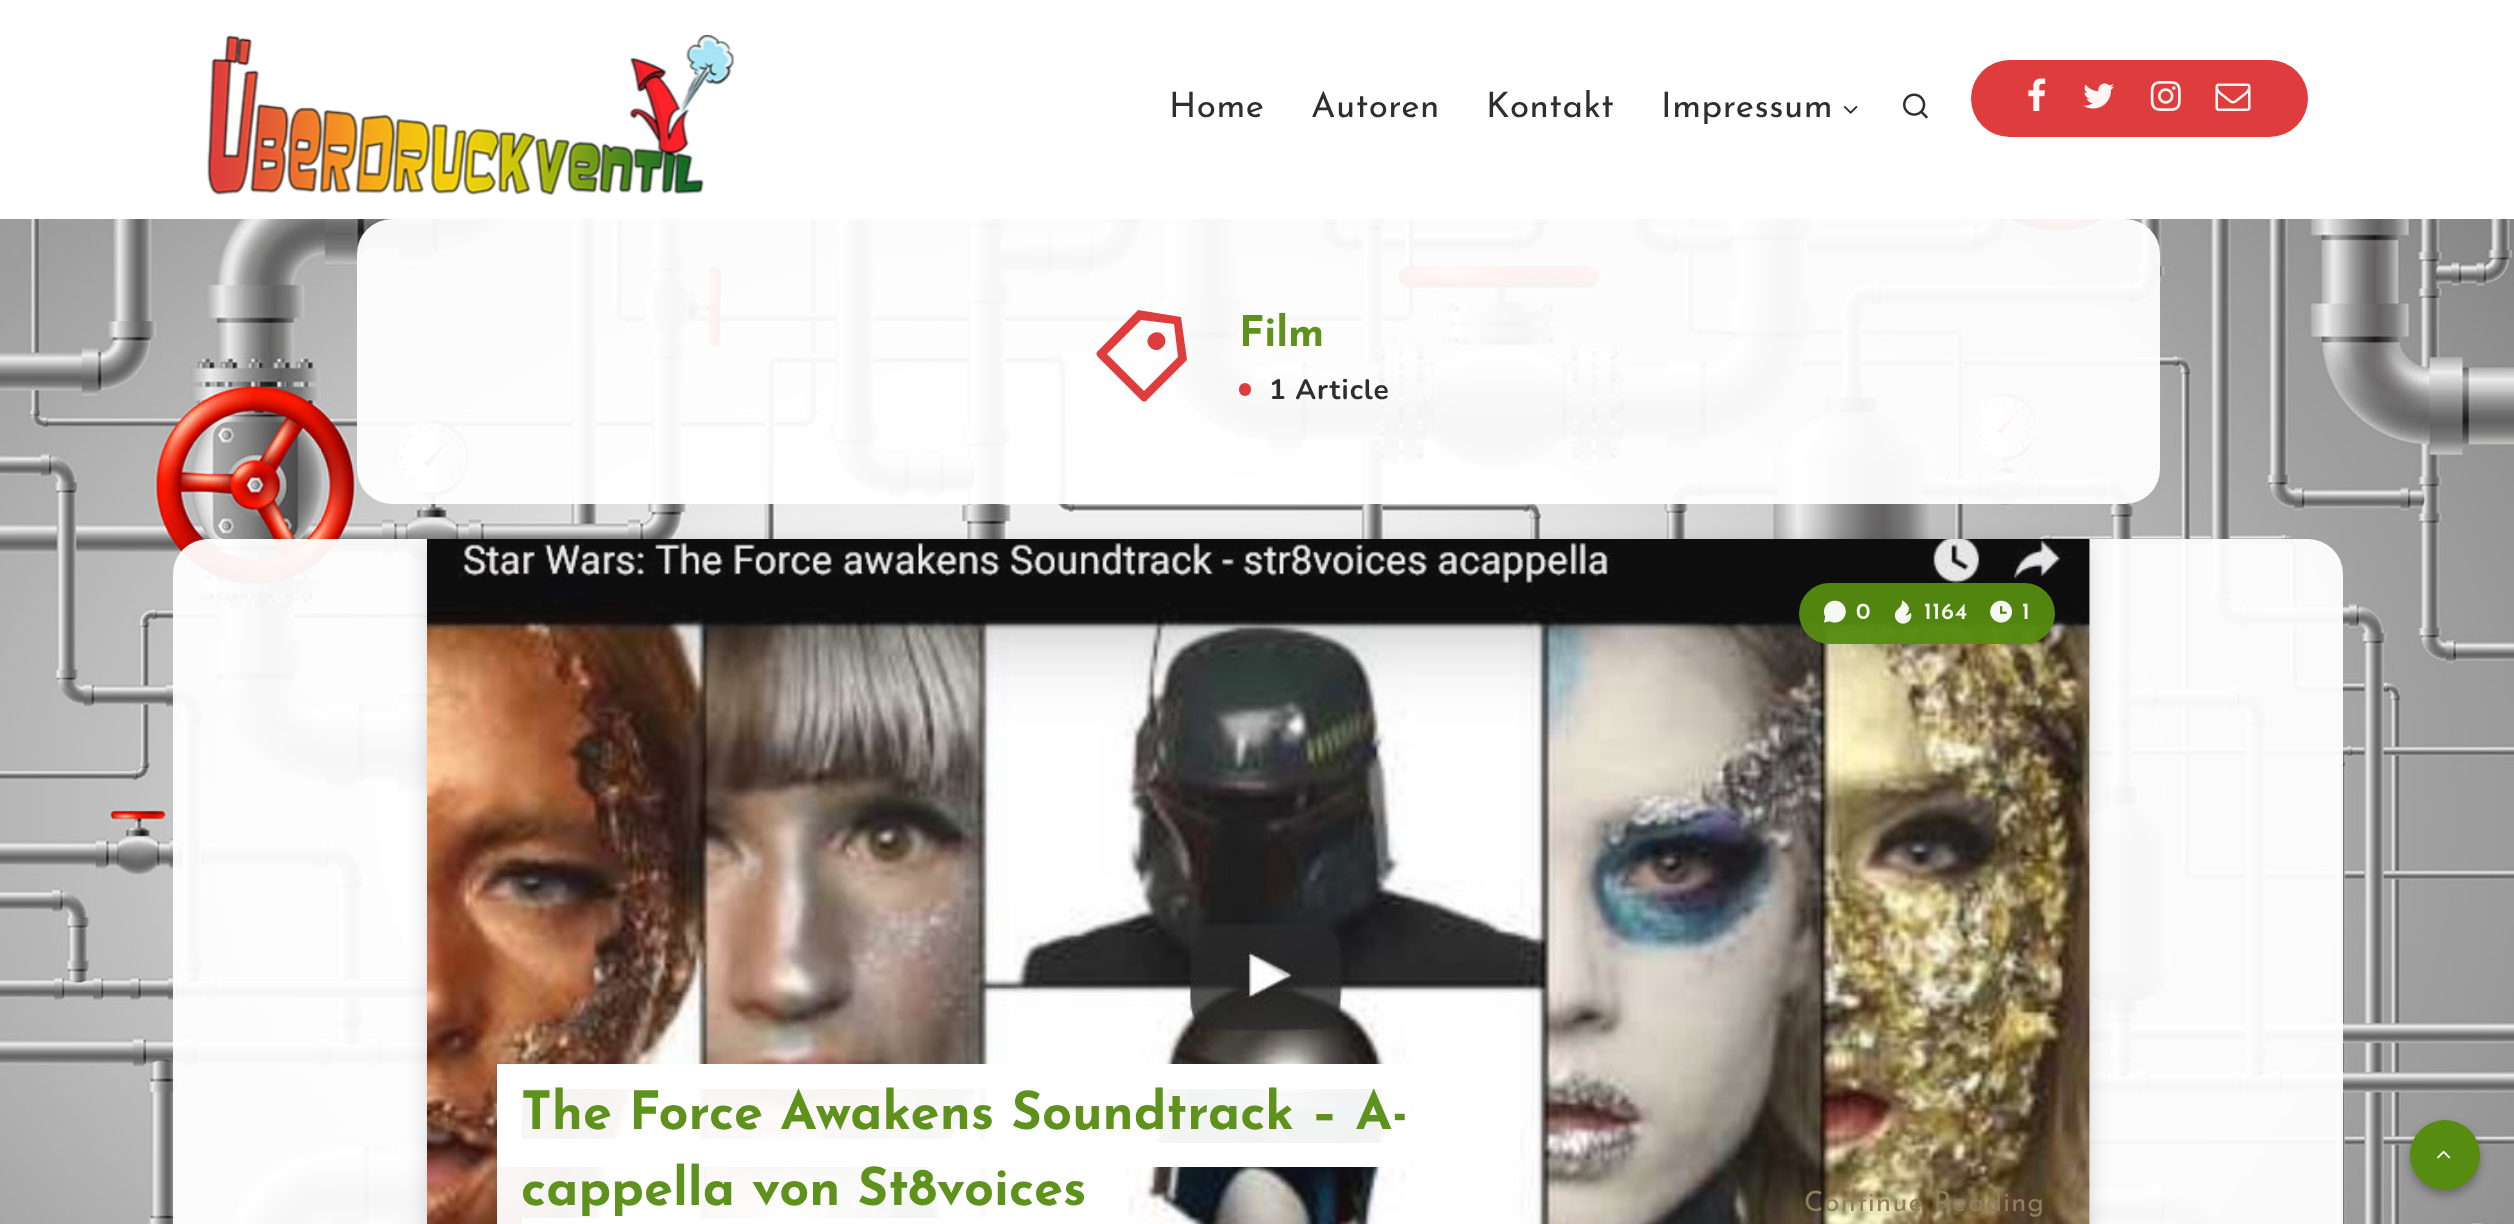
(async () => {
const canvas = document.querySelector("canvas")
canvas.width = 2514
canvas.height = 1224
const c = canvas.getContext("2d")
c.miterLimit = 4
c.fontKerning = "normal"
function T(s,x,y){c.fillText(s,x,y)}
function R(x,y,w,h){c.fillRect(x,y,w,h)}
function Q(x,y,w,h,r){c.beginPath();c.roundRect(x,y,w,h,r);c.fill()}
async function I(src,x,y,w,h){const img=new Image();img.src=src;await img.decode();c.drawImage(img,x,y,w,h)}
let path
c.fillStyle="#fff"
R(0,0,2514,1224)
await I("1.png",207,35,527,160)
c.letterSpacing="0.5px"
c.font="100 35px Josefin Sans"
c.fillStyle="#2f2e2e"
T("Home",1169,117)
T("Autoren",1311,117)
T("Kontakt",1486,117)
T("Impressum",1661,117)
await I("2.png",1843,105,15,9)
await I("3.png",1903,93,26,26)
c.fillStyle="#df3d3d"
Q(1971,60,337,77,38.5)
await I("4.png",2028,78,18,33)
await I("5.png",2083,83,31,26)
await I("6.png",2150,81,31,30)
await I("7.png",2215,83,36,28)
await I("14.png",0,219,2514,1005)
c.fillStyle="#fffffff2"
Q(357,219,1803,285,35)
c.fillStyle="#dd3333f2"
path = new Path2D("M1138 310l43 7l6 43l-40 40c-1 2-4 2-6 0l-43-43c-2-2-2-5 0-6zm3 10l-34 34l37 37l34-34l-4-33zm9 27c-8-8 5-20 13-12c8 8-5 21-13 12z")
c.fill(path)
c.letterSpacing="0px"
c.font="100 42px 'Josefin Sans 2'"
c.fillStyle="#5e921c"
T("Film",1239,346)
c.fillStyle="#de3d3d"
Q(1239,383,12,13,6)
c.letterSpacing="0.9px"
c.font="200 28px Nunito"
c.fillStyle="#2f2e2e"
T("1 Article",1269,399)
c.fillStyle="#fffffff2"
Q(173,539,2170,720,35)
c.save()
path = new Path2D("M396 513h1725v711h-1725zm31 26h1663v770h-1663z")
c.clip(path,"evenodd")
c.fillStyle="#070a1930"
c.filter="blur(10.5px)"
c.beginPath()
c.rect(429,546,1659,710)
c.fill()
c.filter="none"
c.restore()
c.fillStyle="#f9f9f9f2"
R(427,539,1663,685)
await I("11.png",427,539,1663,685)
c.fillStyle="#568c10f2"
Q(1799,583,256,61,30.5)
await I("8.png",1823,600,23,23)
c.font="100 23px 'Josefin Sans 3'"
c.fillStyle="#f6f9f3"
T("0",1856,619)
await I("9.png",1894,600,18,24)
T("1164",1924,619)
await I("10.png",1990,600,23,23)
c.fillStyle="#fcfcfc"
T("1",2022,619)
await I("12.png",497,1064,909,160)
c.fillStyle="#fffffff2"
R(497,1064,888,25)
c.letterSpacing="0px"
c.font="100 52.5px 'Josefin Sans 2'"
c.fillStyle="#5e921c"
T("The Force Awakens Soundtrack – A-",521,1129)
c.fillStyle="#fffffff2"
R(497,1089,25,54)
R(522,1139,464,4)
R(497,1143,910,24)
c.fillStyle="#5e921c"
T("cappella von St8voices",521,1205)
c.fillStyle="#fffffff2"
R(522,1218,464,6)
c.letterSpacing="0.9px"
c.font="100 28px Josefin Sans"
c.fillStyle="#8e7e5b"
T("Continue Reading",1804,1211)
c.fillStyle="#0000004d"
c.filter="blur(5px)"
c.beginPath()
c.roundRect(2410,1125,70,70,35)
c.fill()
c.filter="none"
c.fillStyle="#568c10"
c.beginPath()
c.arc(2445,1155,35,0,7)
c.fill()
await I("13.png",2437,1150,14,9)
})()
